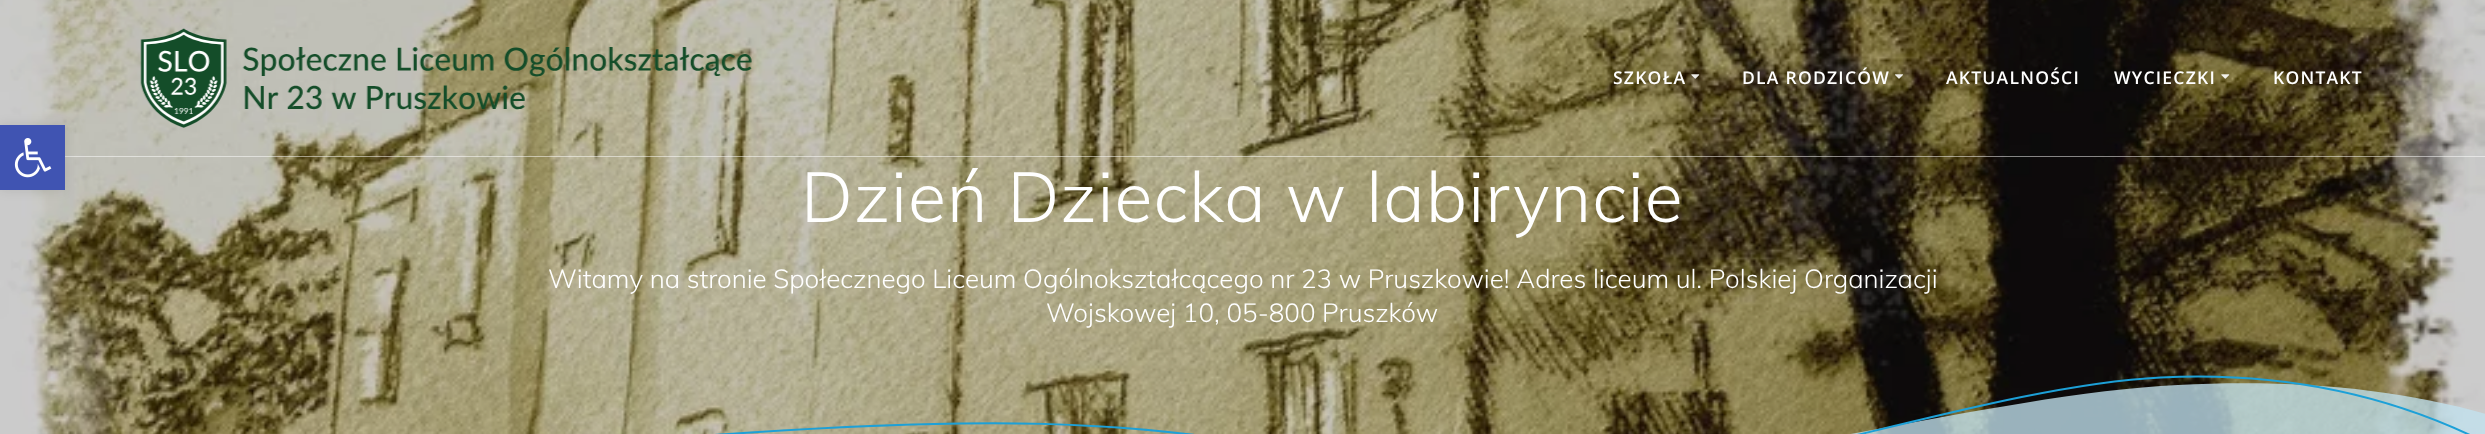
(async () => {
const canvas = document.querySelector("canvas")
canvas.width = 2485
canvas.height = 434
const c = canvas.getContext("2d")
c.miterLimit = 4
c.fontKerning = "normal"
function T(s,x,y){c.fillText(s,x,y)}
function R(x,y,w,h){c.fillRect(x,y,w,h)}
async function I(src,x,y,w,h){const img=new Image();img.src=src;await img.decode();c.drawImage(img,x,y,w,h)}
let path
c.fillStyle="#fff"
R(0,0,2485,434)
await I("6.png",0,0,2485,434)
c.fillStyle="#ffffff80"
R(65,156,2420,1)
await I("1.png",140,28,612,100)
c.letterSpacing="1.25px"
c.font="600 17.5px Open Sans"
c.fillStyle="#fff"
T("SZKOŁA",1613,84)
await I("2.png",1691,74,9,5)
T("DLA RODZICÓW",1742,84)
await I("3.png",1895,74,8,5)
T("AKTUALNOŚCI",1946,84)
T("WYCIECZKI",2114,84)
await I("4.png",2221,74,9,5)
T("KONTAKT",2273,84)
c.fillStyle="#0000001a"
c.filter="blur(6px)"
c.beginPath()
c.rect(0,125,65,65)
c.fill()
c.filter="none"
c.fillStyle="#4054b2"
R(0,125,65,65)
await I("5.png",14,138,38,40)
c.letterSpacing="1.1px"
c.font="300 70px Muli"
c.fillStyle="#fff"
T("Dzień Dziecka w labiryncie",801,222)
c.letterSpacing="0px"
c.font="300 26px Muli"
T("Witamy na stronie Społecznego Liceum Ogólnokształcącego nr 23 w Pruszkowie! Adres liceum ul. Polskiej Organizacji",548,288)
T("Wojskowej 10, 05-800 Pruszków",1046,322)
c.fillStyle="#c2e1eec7"
path = new Path2D("M-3 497c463-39 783-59 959-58c265 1 417 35 588 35c172 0 456-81 634-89c118-6 222 4 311 30v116l-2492 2z")
c.fill(path)
path = new Path2D("M-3 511.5c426.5-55.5 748-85 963.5-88c323-5 415 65 586.5 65c171.5 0 436-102 613.5-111c119-6 228 16 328 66.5")
c.strokeStyle="#1da0d7"
c.lineWidth=2
c.stroke(path)
})()
